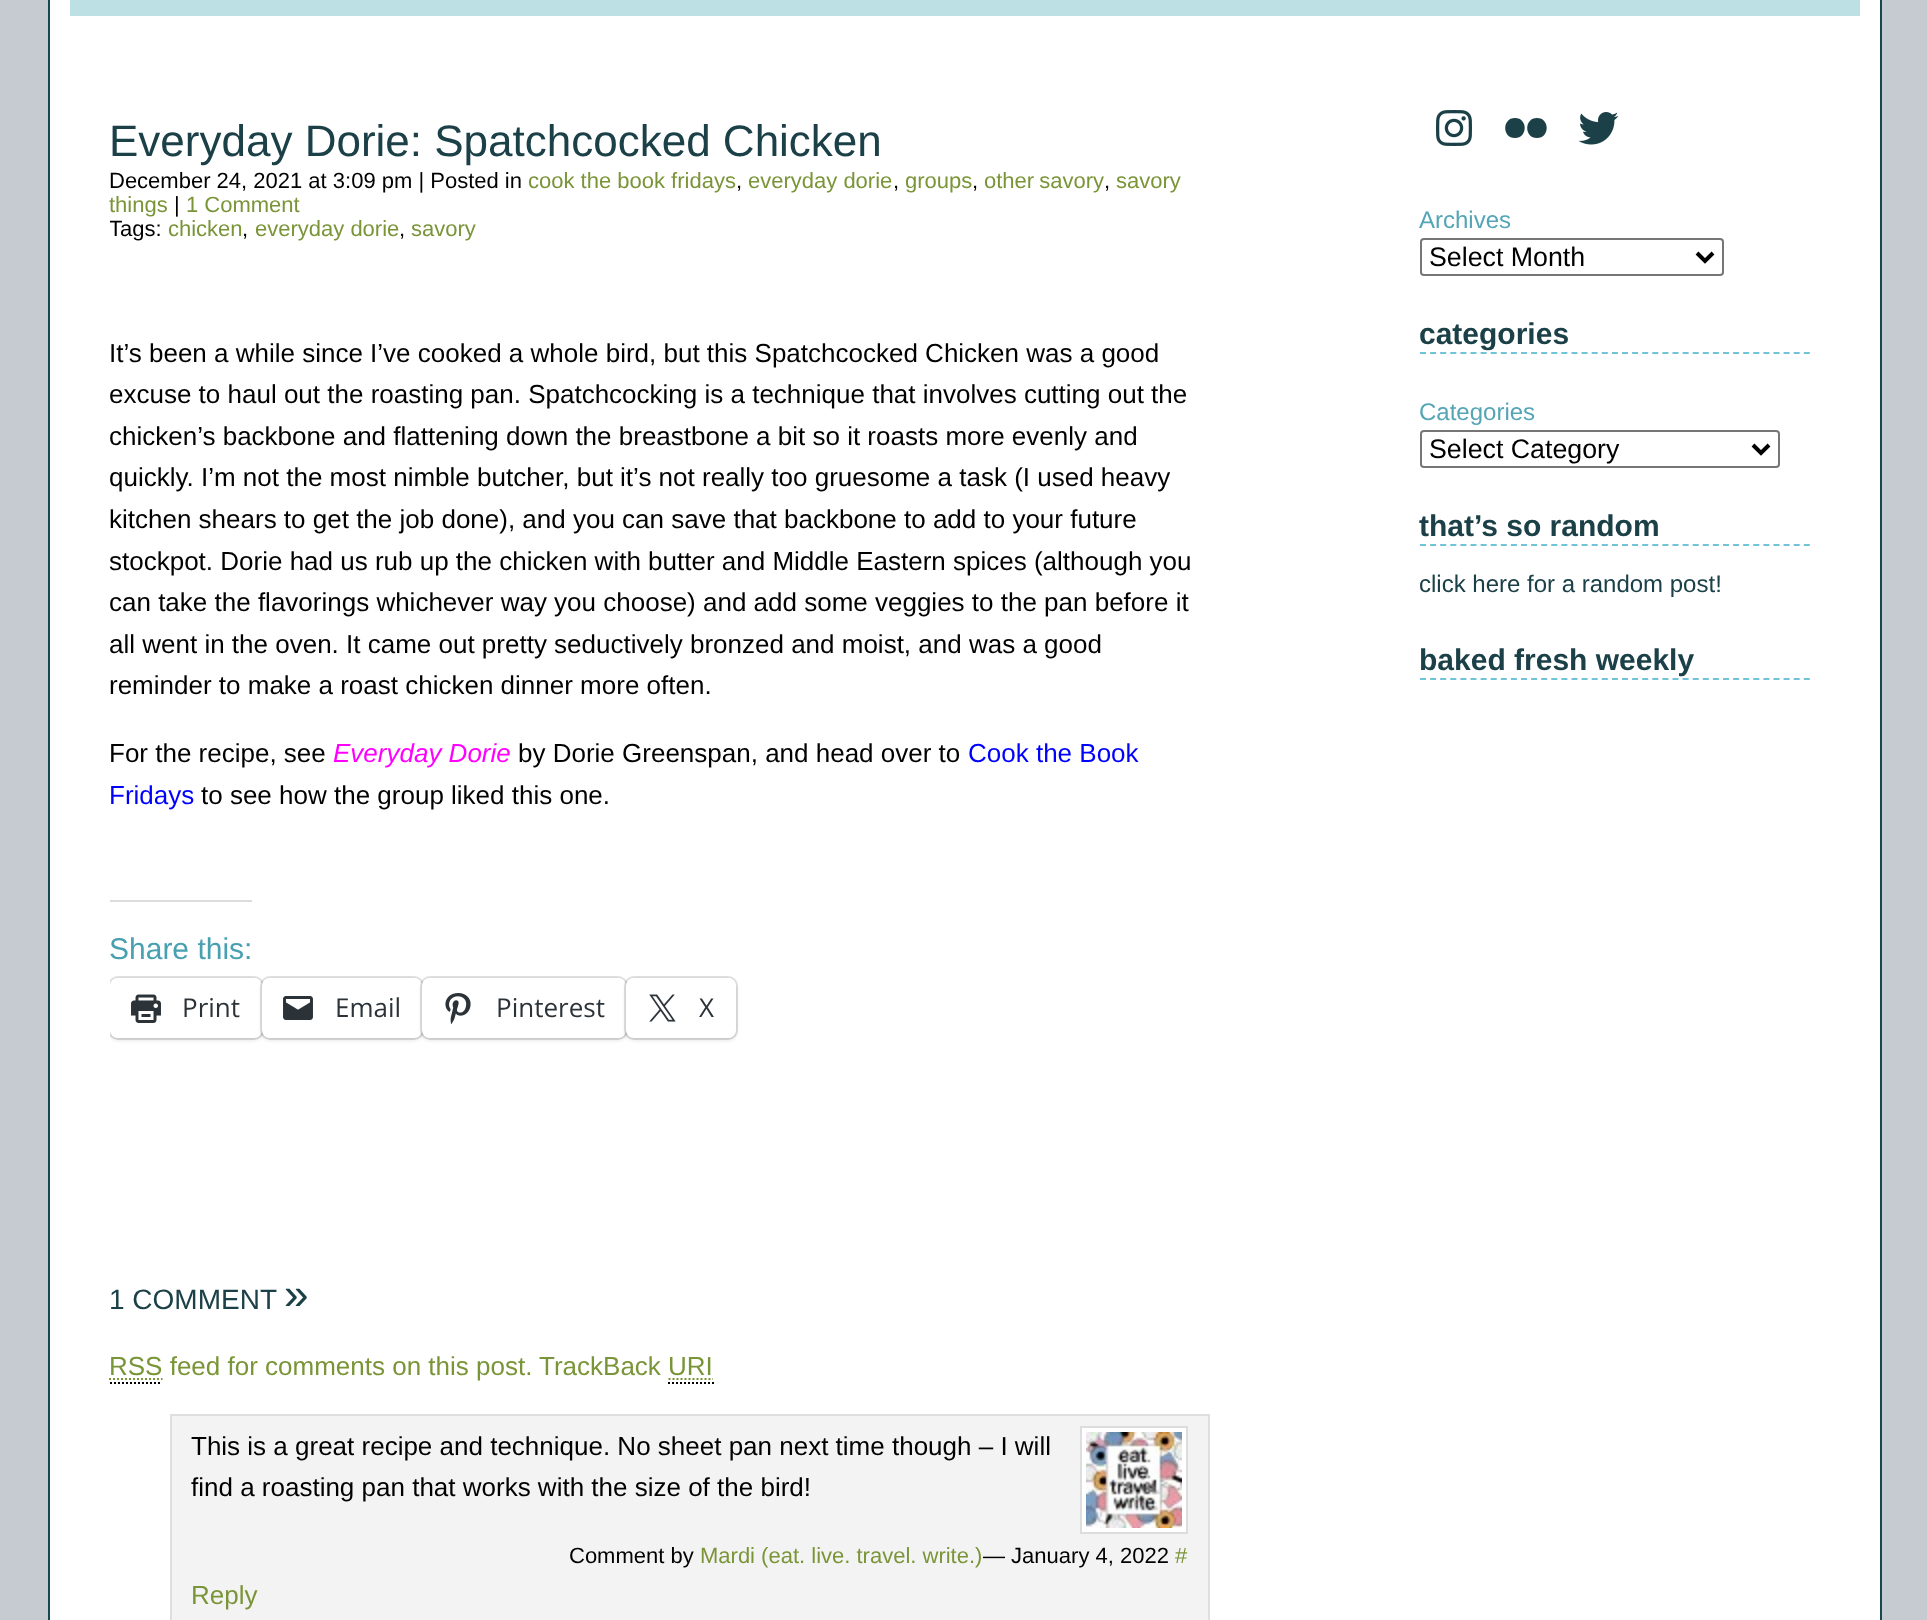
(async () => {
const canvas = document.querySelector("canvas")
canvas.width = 1927
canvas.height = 1620
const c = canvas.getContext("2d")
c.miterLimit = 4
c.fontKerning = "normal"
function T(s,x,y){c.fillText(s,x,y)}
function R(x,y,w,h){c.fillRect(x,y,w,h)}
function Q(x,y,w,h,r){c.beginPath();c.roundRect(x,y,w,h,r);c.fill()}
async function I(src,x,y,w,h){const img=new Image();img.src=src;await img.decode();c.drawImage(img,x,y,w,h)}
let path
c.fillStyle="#c6cbd1"
R(0,0,1927,1620)
c.fillStyle="#fff"
c.beginPath()
c.rect(49,-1,1832,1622)
c.fill()
c.strokeStyle="#13494f"
c.lineWidth=2
c.stroke()
c.fillStyle="#bde0e4"
R(70,0,1790,16)
c.font="44px Liberation Sans"
c.fillStyle="#1b4047"
T("Everyday Dorie: Spatchcocked Chicken",109,156)
c.font="22px Liberation Sans"
c.fillStyle="#000"
T("December 24, 2021 at 3:09 pm | Posted in",109,188)
c.fillStyle="#7a9538"
T("cook the book fridays",528,188)
c.fillStyle="#000"
T(",",736,188)
c.fillStyle="#7a9538"
T("everyday dorie",748,188)
c.fillStyle="#000"
T(",",893,188)
c.fillStyle="#7a9538"
T("groups",905,188)
c.fillStyle="#000"
T(",",972,188)
c.wordSpacing="-1px"
c.fillStyle="#7a9538"
T("other savory",984,188)
c.wordSpacing="0px"
c.fillStyle="#000"
T(",",1104,188)
c.fillStyle="#7a9538"
T("savory",1116,188)
T("things",109,212)
c.fillStyle="#000"
T("|",174,212)
c.fillStyle="#7a9538"
T("1 Comment",186,212)
c.save()
c.beginPath()
c.rect(110,16,1100,1154)
c.clip()
c.fillStyle="#000"
T("Tags:",109,236)
c.restore()
T("chicken",168,236)
c.fillStyle="#000"
T(",",242,236)
c.fillStyle="#7a9538"
T("everyday dorie",255,236)
c.fillStyle="#000"
T(",",399,236)
c.fillStyle="#7a9538"
T("savory",411,236)
c.font="26px Liberation Sans"
c.fillStyle="#000"
T("It’s been a while since I’ve cooked a whole bird, but this Spatchcocked Chicken was a good",109,362)
T("excuse to haul out the roasting pan. Spatchcocking is a technique that involves cutting out the",109,403)
T("chicken’s backbone and flattening down the breastbone a bit so it roasts more evenly and",109,445)
T("quickly. I’m not the most nimble butcher, but it’s not really too gruesome a task (I used heavy",109,486)
T("kitchen shears to get the job done), and you can save that backbone to add to your future",109,528)
T("stockpot. Dorie had us rub up the chicken with butter and Middle Eastern spices (although you",109,570)
T("can take the flavorings whichever way you choose) and add some veggies to the pan before it",109,611)
T("all went in the oven. It came out pretty seductively bronzed and moist, and was a good",109,653)
T("reminder to make a roast chicken dinner more often.",109,694)
T("For the recipe, see",109,762)
c.font="italic 26px Liberation Sans"
c.fillStyle="#f0f"
T("Everyday Dorie",333,762)
c.font="26px Liberation Sans"
c.fillStyle="#000"
T("by Dorie Greenspan, and head over to",518,762)
c.fillStyle="#00f"
T("Cook the Book",968,762)
T("Fridays",109,804)
c.fillStyle="#000"
T("to see how the group liked this one.",201,804)
c.fillStyle="#dcdcde"
R(110,900,142,2)
c.font="30px Liberation Sans"
c.fillStyle="#49a0b0"
T("Share this:",109,959)
c.save()
c.beginPath()
c.rect(110,16,1100,1154)
c.clip()
c.beginPath()
c.roundRect(109,977,154,62,9)
c.strokeStyle="#e0e0e0"
c.stroke()
c.restore()
c.save()
c.beginPath()
c.rect(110,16,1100,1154)
c.clip()
c.fillStyle="#0000001f"
c.filter="blur(2px)"
c.beginPath()
c.roundRect(110,980,152,60,8)
c.fill()
c.filter="none"
c.restore()
c.fillStyle="#fff"
Q(110,978,152,60,8)
await I("1.png",131,994,30,29)
c.font="26px Open Sans"
c.fillStyle="#2c3338"
T("Print",182,1017)
c.beginPath()
c.roundRect(261,977,162,62,9)
c.strokeStyle="#0000001f"
c.stroke()
c.fillStyle="#0000001f"
c.filter="blur(2px)"
c.beginPath()
c.roundRect(262,980,160,60,8)
c.fill()
c.filter="none"
c.fillStyle="#fff"
Q(262,978,160,60,8)
await I("2.png",283,996,30,24)
c.fillStyle="#2c3338"
T("Email",335,1017)
c.beginPath()
c.roundRect(421,977,206,62,9)
c.stroke()
c.fillStyle="#0000001f"
c.filter="blur(2px)"
c.beginPath()
c.roundRect(422,980,204,60,8)
c.fill()
c.filter="none"
c.fillStyle="#fff"
Q(422,978,204,60,8)
await I("3.png",445,993,26,32)
c.fillStyle="#2c3338"
T("Pinterest",496,1017)
c.beginPath()
c.roundRect(625,977,112,62,9)
c.stroke()
c.fillStyle="#0000001f"
c.filter="blur(2px)"
c.beginPath()
c.roundRect(626,980,110,60,8)
c.fill()
c.filter="none"
c.fillStyle="#fff"
Q(626,978,110,60,8)
await I("4.png",649,994,27,28)
c.fillStyle="#2c3338"
T("X",699,1017)
c.font="28px Liberation Sans"
c.fillStyle="#1b4047"
T("1 COMMENT",109,1309)
c.font="44px Liberation Sans"
T("»",284,1309)
path = new Path2D("M109 1379h53.5")
c.strokeStyle="#7a9538"
c.setLineDash([2,2])
c.stroke(path)
c.font="26px Liberation Sans"
c.fillStyle="#7a9538"
T("RSS feed for comments on this post.",109,1375)
path = new Path2D("M110 1383h52")
c.strokeStyle="#000"
c.stroke(path)
T("TrackBack URI",539,1375)
path = new Path2D("M668 1383h46")
c.stroke(path)
path = new Path2D("M668.5 1379h44.5")
c.strokeStyle="#7a9538"
c.stroke(path)
c.fillStyle="#f4f3f3"
c.beginPath()
c.rect(171,1415,1038,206)
c.fill()
c.strokeStyle="#e0dede"
c.setLineDash([])
c.stroke()
c.fillStyle="#000"
T("This is a great recipe and technique. No sheet pan next time though – I will",191,1455)
T("find a roasting pan that works with the size of the bird!",191,1496)
c.fillStyle="#fff"
c.beginPath()
c.rect(1081,1427,106,106)
c.fill()
c.strokeStyle="#ddd"
c.stroke()
await I("5.png",1086,1432,96,96)
c.font="22px Liberation Sans"
c.fillStyle="#000"
T("Comment by",569,1563)
c.fillStyle="#7a9538"
T("Mardi (eat. live. travel. write.)",700,1563)
c.fillStyle="#000"
T("— January 4, 2022",983,1563)
c.fillStyle="#7a9538"
T("#",1175,1563)
c.font="26px Liberation Sans"
T("Reply",191,1604)
await I("6.png",1436,110,36,36)
c.fillStyle="#1b4047"
path = new Path2D("M1515 118c-13 0-13 20 0 20c13 0 13-20 0-20zm22 0c-13 0-13 20 0 20c13 0 13-20 0-20z")
c.fill(path)
await I("7.png",1578,112,41,33)
c.font="24px Liberation Sans"
c.fillStyle="#55a5b6"
T("Archives",1419,228)
c.beginPath()
c.roundRect(1421,239,302,36,3)
c.strokeStyle="#767676"
c.stroke()
path = new Path2D("M1697 253l8 8l8-8")
c.strokeStyle="#000"
c.lineWidth=4
c.stroke(path)
c.font="26.75px Liberation Sans"
c.fillStyle="#000"
T("Select Month",1429,266)
path = new Path2D("M1420 353h390")
c.strokeStyle="#71c3d8"
c.lineWidth=2
c.setLineDash([6,4.1])
c.stroke(path)
c.font="bold 30px Liberation Sans"
c.fillStyle="#1b4047"
T("categories",1419,344)
c.font="24px Liberation Sans"
c.fillStyle="#55a5b6"
T("Categories",1419,420)
c.beginPath()
c.roundRect(1421,431,358,36,3)
c.strokeStyle="#767676"
c.setLineDash([])
c.stroke()
path = new Path2D("M1753 445l8 8l8-8")
c.strokeStyle="#000"
c.lineWidth=4
c.stroke(path)
c.font="26.75px Liberation Sans"
c.fillStyle="#000"
T("Select Category",1429,458)
path = new Path2D("M1420 545h390")
c.strokeStyle="#71c3d8"
c.lineWidth=2
c.setLineDash([6,4.1])
c.stroke(path)
c.font="bold 30px Liberation Sans"
c.fillStyle="#1b4047"
T("that’s so random",1419,536)
c.font="24px Liberation Sans"
T("click here for a random post!",1419,592)
path = new Path2D("M1420 679h390")
c.stroke(path)
c.font="bold 30px Liberation Sans"
T("baked fresh weekly",1419,670)
})()
